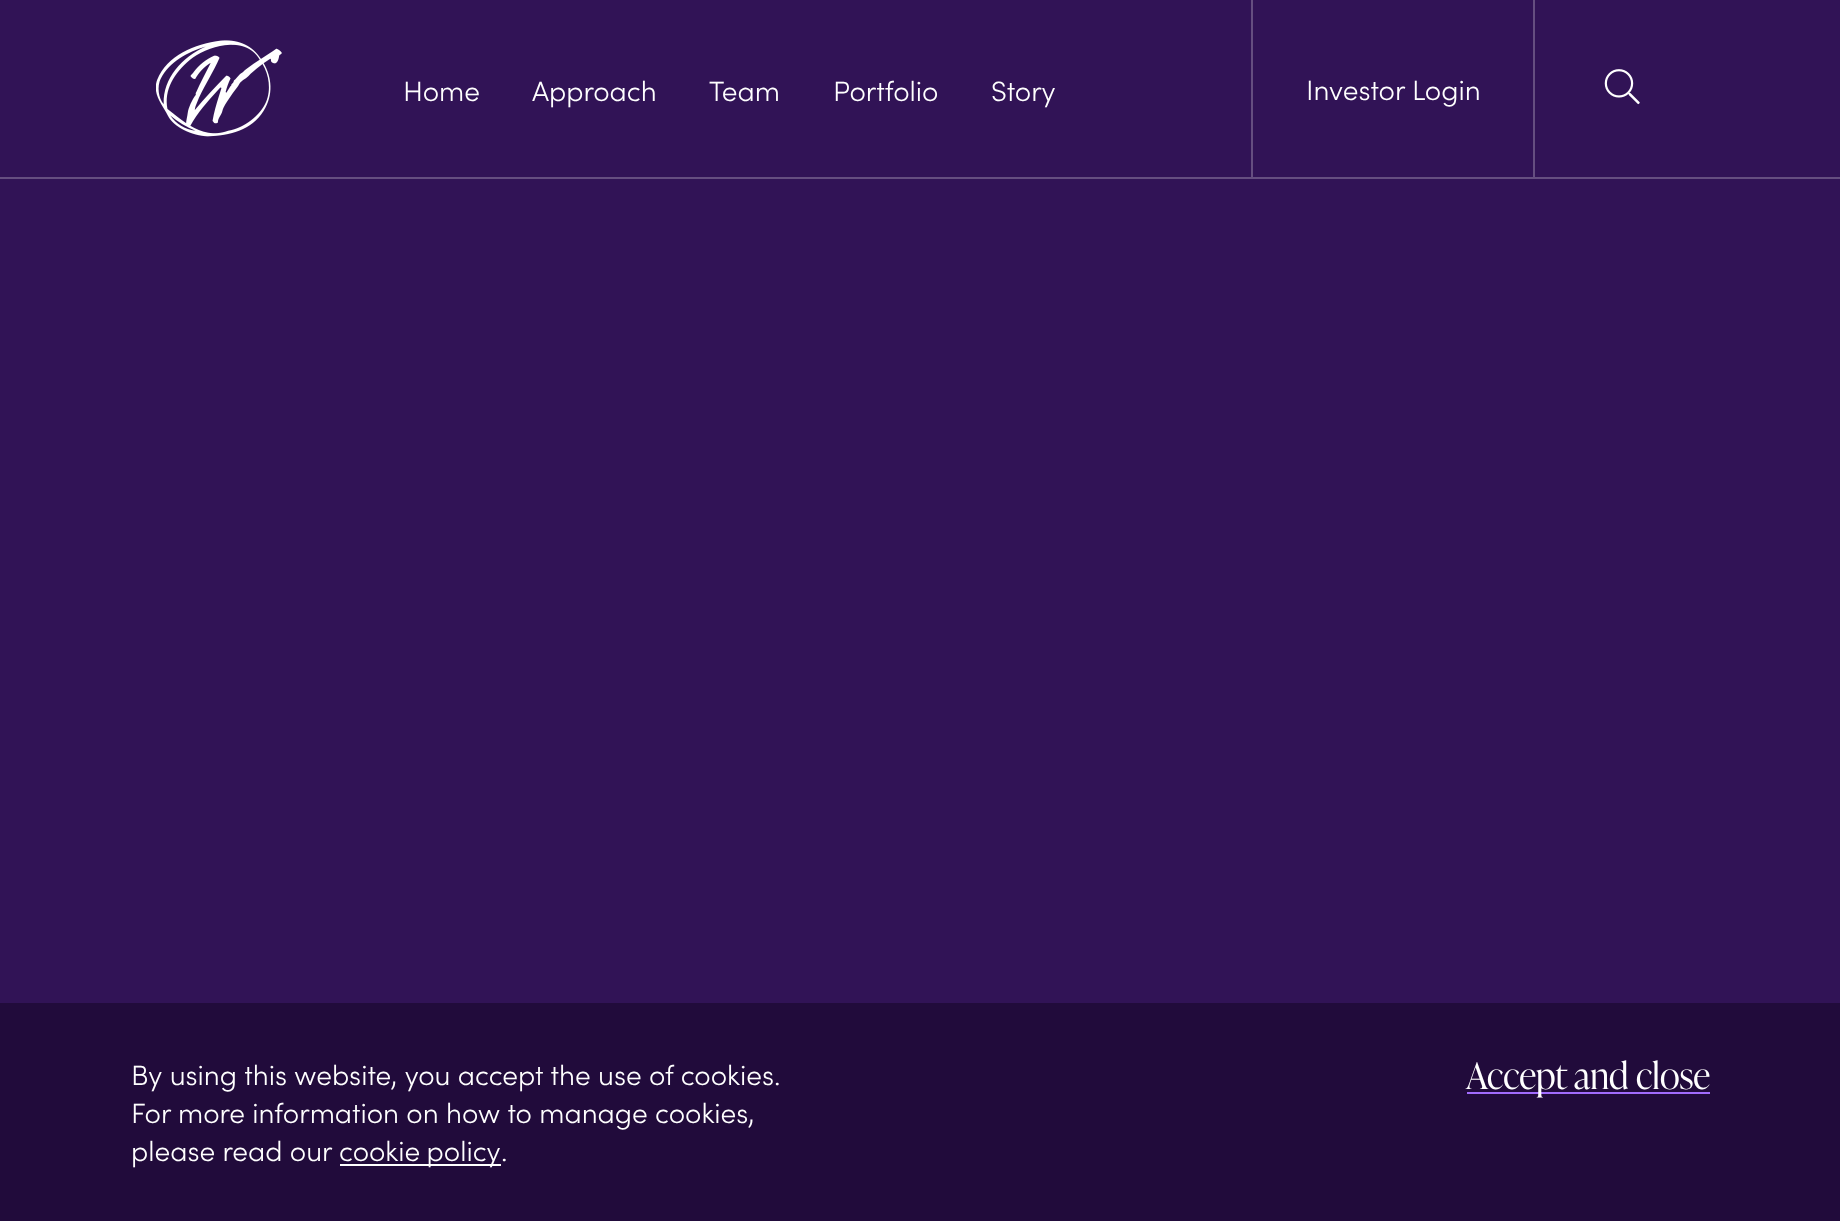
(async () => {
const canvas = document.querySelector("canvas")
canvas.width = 1840
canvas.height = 1221
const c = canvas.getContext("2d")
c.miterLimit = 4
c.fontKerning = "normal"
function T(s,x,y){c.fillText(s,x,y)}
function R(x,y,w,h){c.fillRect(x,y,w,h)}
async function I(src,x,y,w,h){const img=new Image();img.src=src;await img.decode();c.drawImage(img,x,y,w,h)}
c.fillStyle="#311356"
R(0,0,1840,1221)
await I("1.png",156,40,126,97)
c.font="300 28px Sofia"
c.fillStyle="#fff"
T("Home",403,101)
T("Approach",532,101)
T("Team",709,101)
T("Portfolio",833,101)
T("Story",991,101)
c.fillStyle="#654e80"
R(1533,0,2,177)
R(1251,0,2,177)
c.fillStyle="#fff"
T("Investor Login",1306,100)
await I("2.png",1604,69,36,36)
c.fillStyle="#654e80"
R(0,177,1840,2)
c.fillStyle="#210b3b"
R(0,1003,1840,218)
c.fillStyle="#fff"
T("By using this website, you accept the use of cookies.",131,1085)
T("For more information on how to manage cookies,",131,1123)
T("please read our",131,1161)
R(340,1164,161,2)
c.wordSpacing="-1px"
T("cookie policy",339,1161)
c.wordSpacing="0px"
T(".",501,1161)
c.fillStyle="#a26cfe"
R(1467,1092,243,2)
c.font="300 36.75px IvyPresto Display"
c.fillStyle="#fff"
T("Accept and close",1466,1089)
})()
